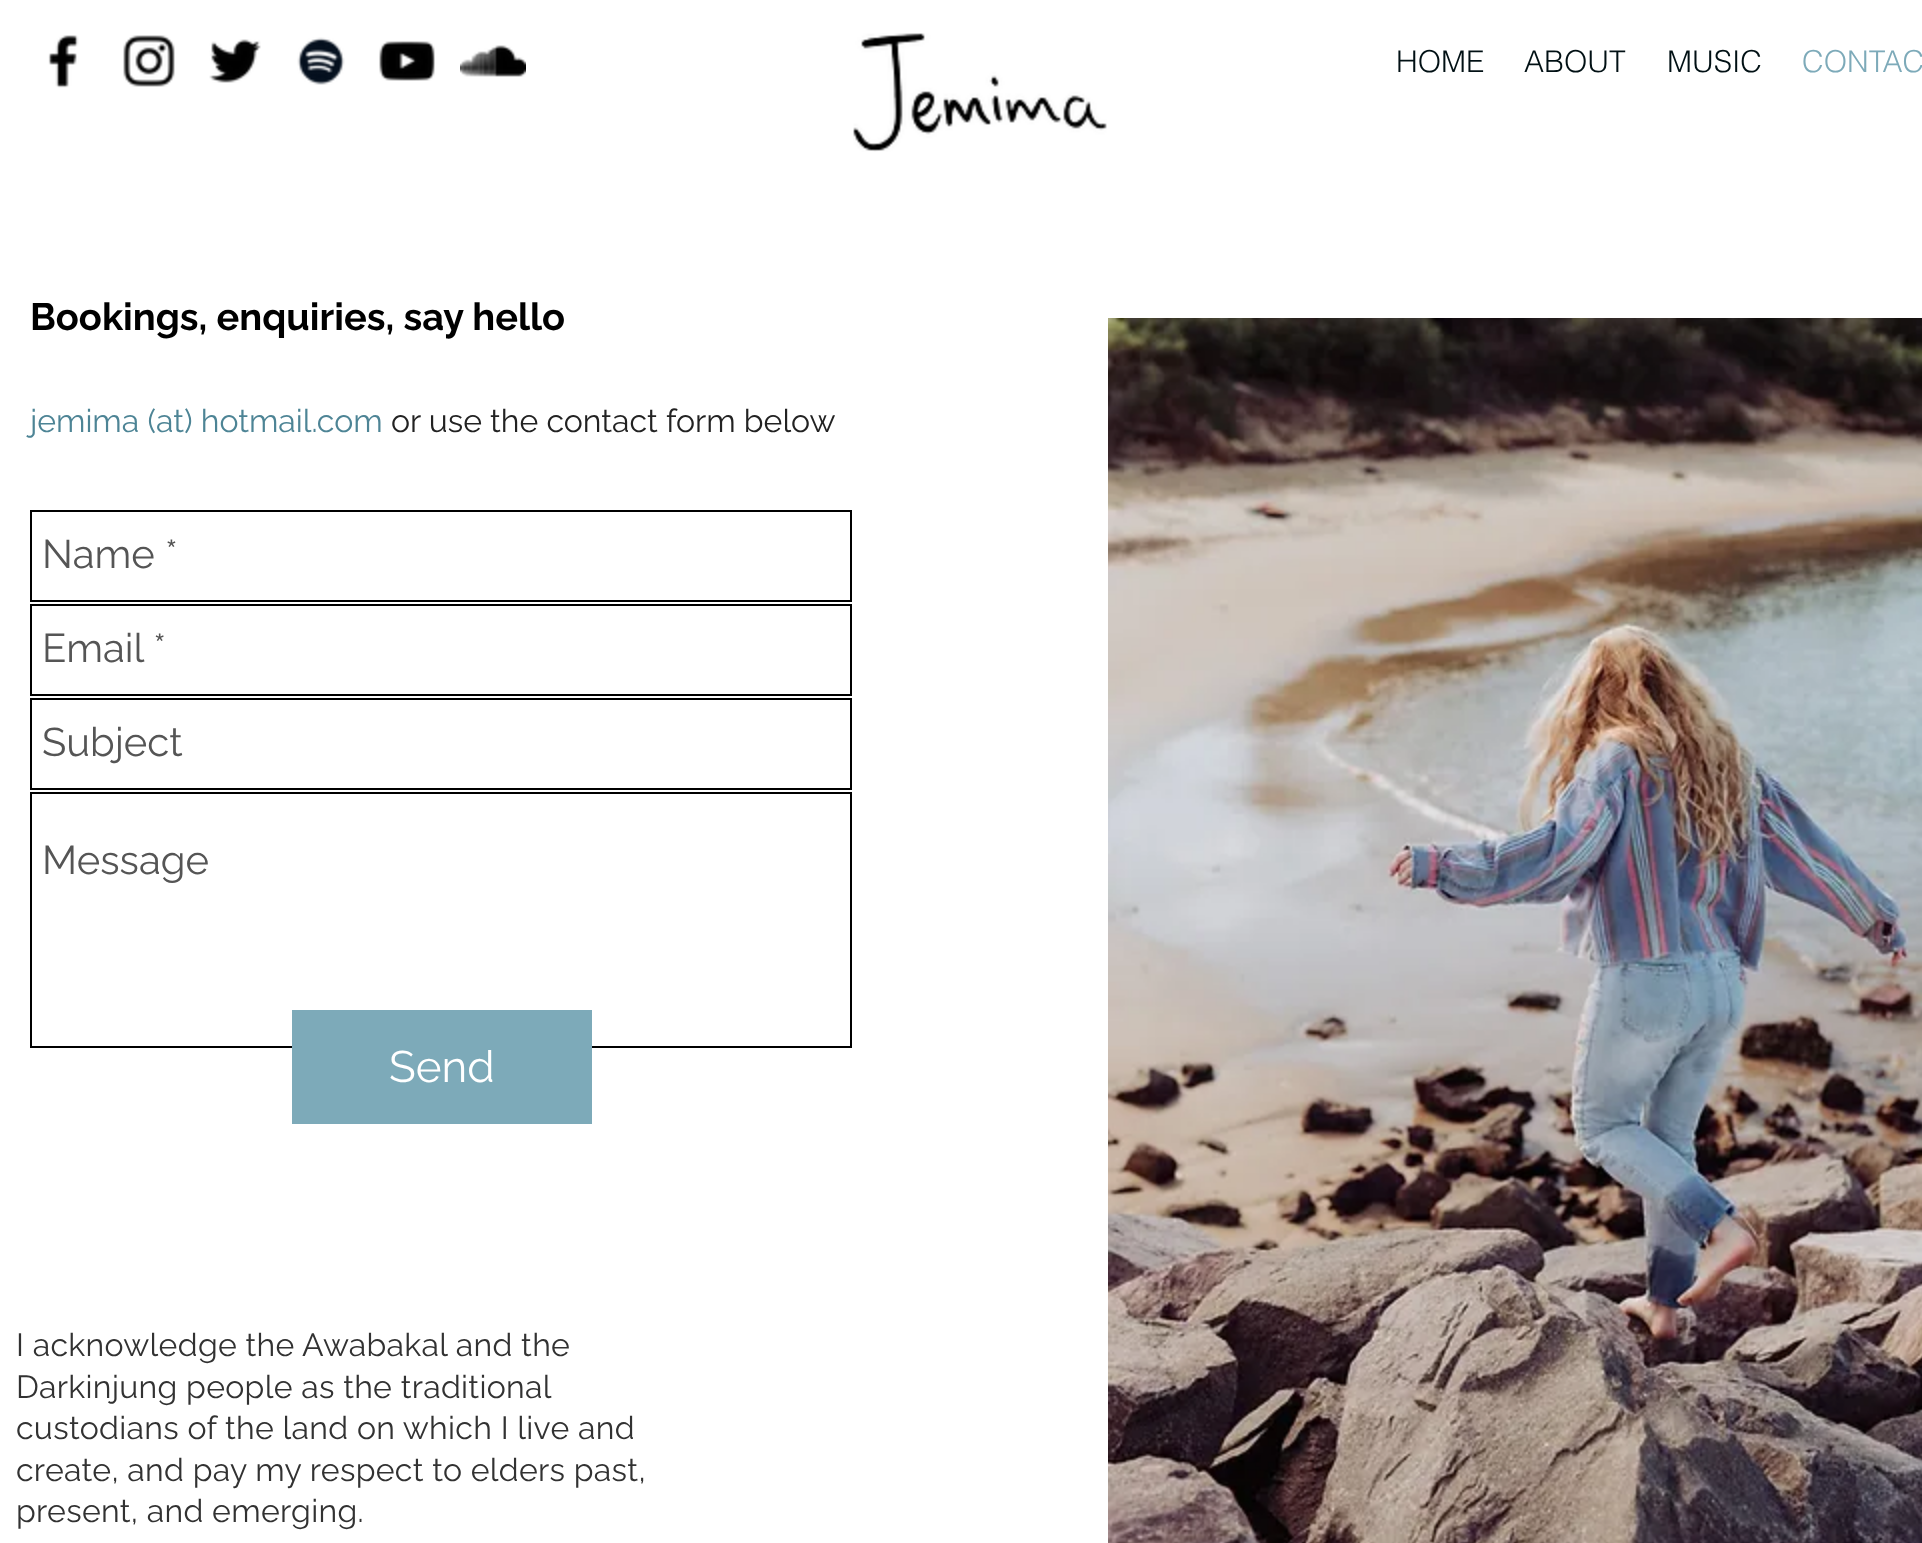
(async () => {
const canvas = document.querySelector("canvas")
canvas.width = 1922
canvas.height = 1543
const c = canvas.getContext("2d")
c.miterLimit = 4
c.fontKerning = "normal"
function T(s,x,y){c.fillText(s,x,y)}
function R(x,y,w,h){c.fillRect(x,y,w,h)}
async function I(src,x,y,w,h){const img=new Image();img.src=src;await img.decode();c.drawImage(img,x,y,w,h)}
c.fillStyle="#fff"
R(0,0,1922,1543)
await I("1.png",48,35,31,53)
await I("2.png",123,35,52,52)
await I("3.png",209,39,52,44)
await I("4.png",297,37,48,48)
await I("5.png",379,41,56,40)
await I("6.png",460,45,66,32)
await I("7.png",853,33,254,119)
c.font="300 30px helvetica"
c.fillStyle="#011014"
T("HOME",1396,72)
T("ABOUT",1524,72)
T("MUSIC",1667,72)
c.fillStyle="#7daab9"
T("CONTAC",1802,72)
c.font="bold 38px Raleway"
c.fillStyle="#000"
T("Bookings, enquiries, say hello",30,330)
c.font="32px Raleway"
c.fillStyle="#4d8495"
T("jemima (at) hotmail.com",30,432)
c.fillStyle="#222"
T("or use the contact form below",391,432)
await I("8.png",1108,318,814,1225)
c.strokeStyle="#000"
c.lineWidth=2
c.strokeRect(31,511,820,90)
c.font="40px Raleway"
c.fillStyle="#555"
T("Name *",42,568)
c.strokeRect(31,605,820,90)
T("Email *",42,662)
c.strokeRect(31,699,820,90)
T("Subject",42,756)
c.strokeRect(31,793,820,254)
T("Message",42,874)
c.fillStyle="#7daab9"
R(292,1010,300,114)
c.font="44px Raleway"
c.fillStyle="#fff"
T("Send",389,1082)
c.letterSpacing="0.3px"
c.font="32px Raleway"
c.fillStyle="#323232"
T("I acknowledge the Awabakal and the",16,1356)
T("Darkinjung people as the traditional",16,1398)
T("custodians of the land on which I live and",16,1439)
T("create, and pay my respect to elders past,",16,1481)
T("present, and emerging.",16,1522)
})()
